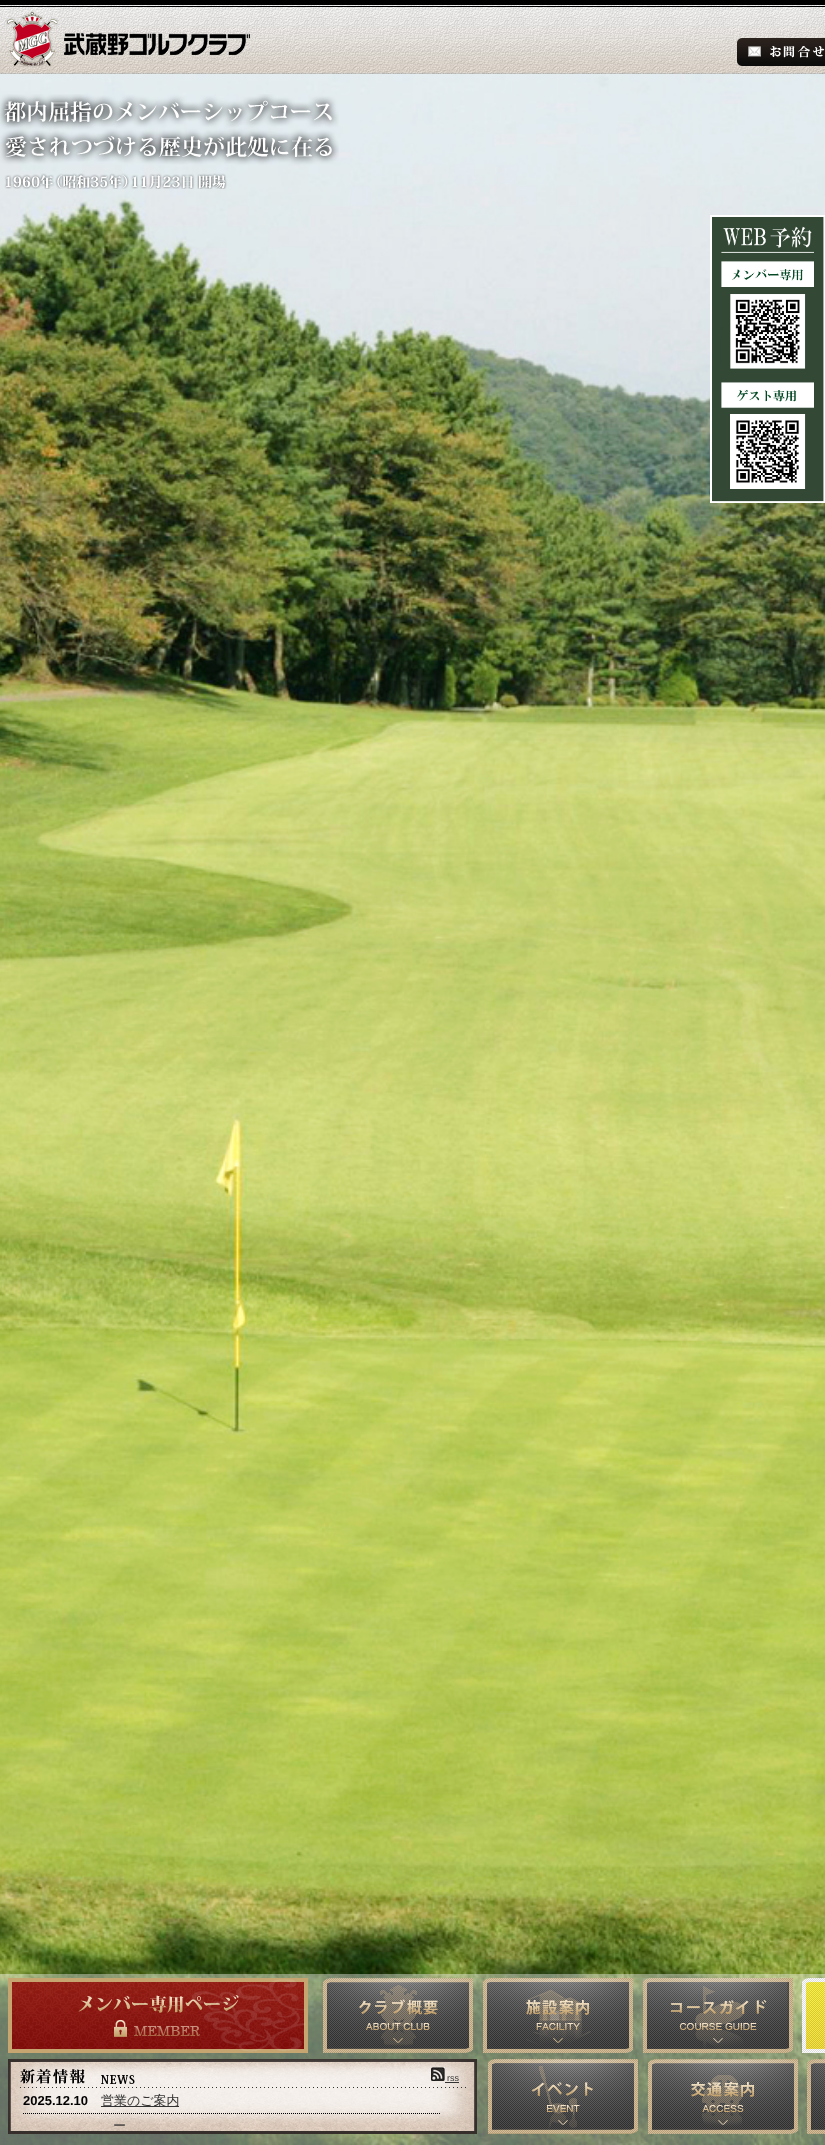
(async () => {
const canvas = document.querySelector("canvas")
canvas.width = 825
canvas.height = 2145
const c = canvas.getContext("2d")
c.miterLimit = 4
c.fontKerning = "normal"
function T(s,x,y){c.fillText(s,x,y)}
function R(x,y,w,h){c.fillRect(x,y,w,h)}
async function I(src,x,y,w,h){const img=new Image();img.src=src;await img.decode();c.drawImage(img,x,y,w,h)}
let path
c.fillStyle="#fff"
R(0,0,825,2145)
await I("1.png",0,0,825,74)
await I("2.png",6,11,244,56)
await I("3.png",737,38,88,28)
await I("5.png",0,74,825,2071)
await I("4.png",0,94,339,95)
await I("6.png",710,215,115,38)
await I("7.png",710,253,115,41)
await I("8.png",710,294,115,82)
await I("9.png",710,376,115,38)
await I("10.png",710,414,115,89)
c.fillStyle="#ffffff66"
R(0,1974,825,171)
await I("11.png",8,1978,300,75)
await I("12.png",323,1978,150,75)
await I("13.png",483,1978,150,75)
await I("14.png",643,1978,150,75)
await I("15.png",802,1978,23,75)
await I("16.png",8,2059,469,75)
await I("17.png",431,2067,14,14)
c.font="9px Liberation Sans"
c.fillStyle="#333"
T("rss",447,2081)
R(445,2082,14,1)
path = new Path2D("M23 2113.5h418")
c.strokeStyle="#000"
c.setLineDash([1,1])
c.stroke(path)
c.font="bold 13px Liberation Sans"
c.fillStyle="#000"
T("2025.12.10",23,2105)
c.fillStyle="#333"
R(101,2106,78,1)
c.font="500 13px WenQuanYi Zen Hei"
T("営業のご案内",101,2105)
T("ー",113,2130)
await I("18.png",488,2059,150,75)
await I("19.png",648,2059,150,75)
await I("20.png",807,2059,18,75)
})()
